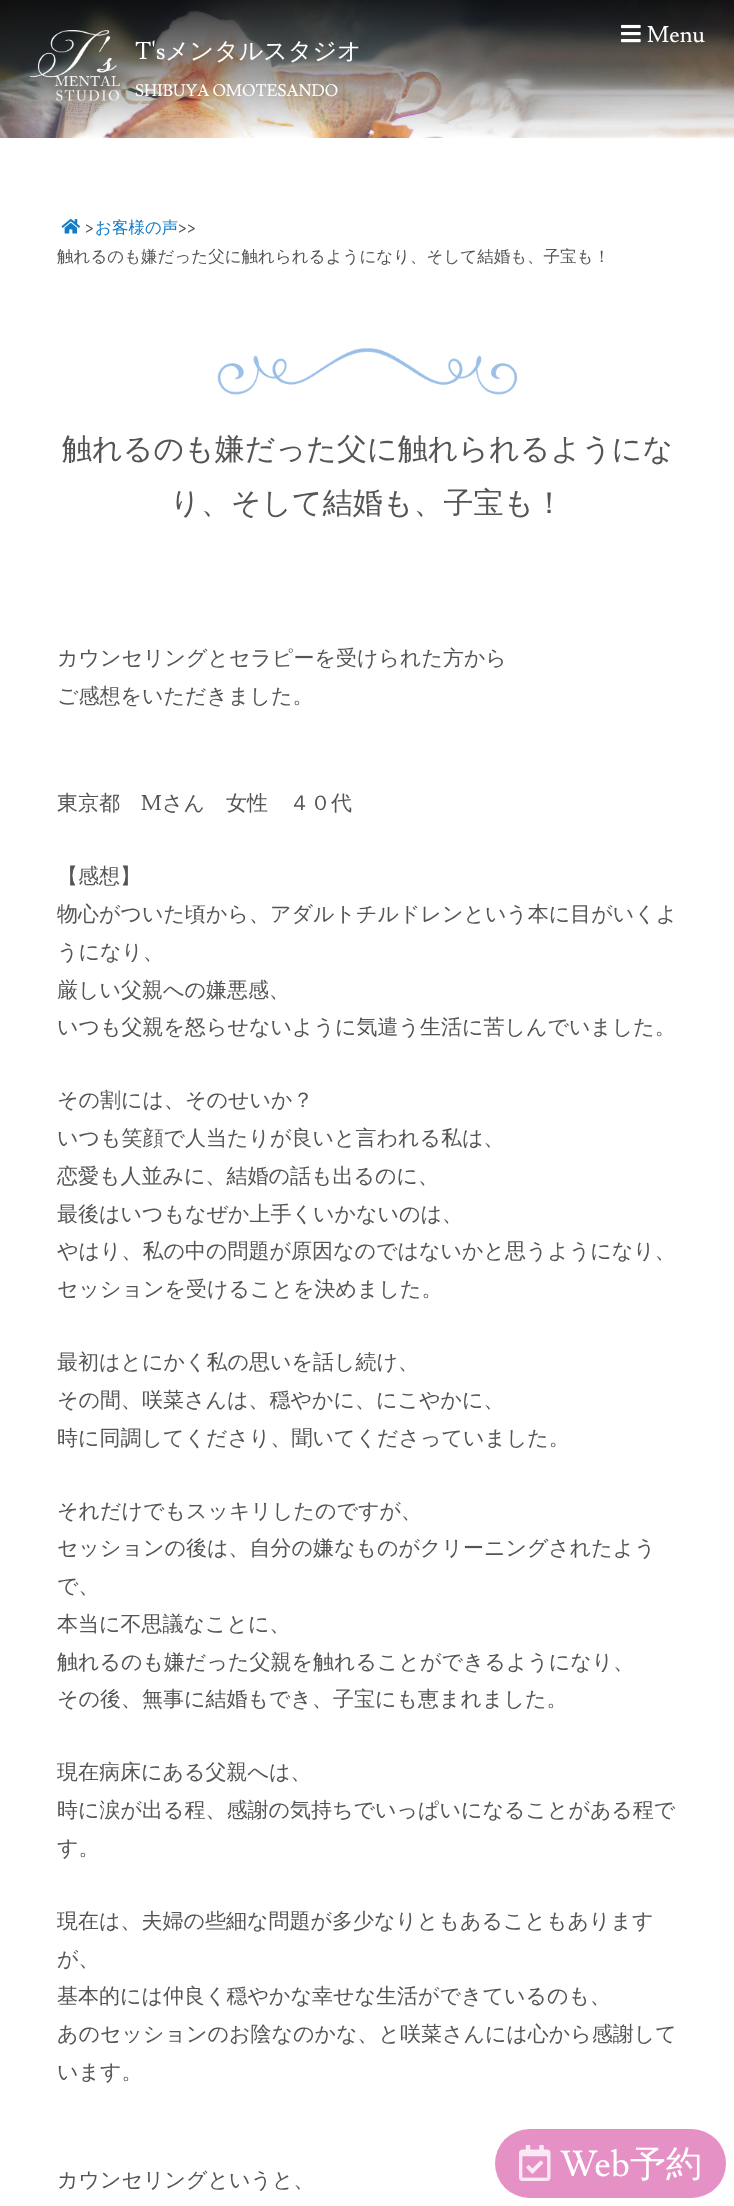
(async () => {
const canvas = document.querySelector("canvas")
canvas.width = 734
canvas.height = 2206
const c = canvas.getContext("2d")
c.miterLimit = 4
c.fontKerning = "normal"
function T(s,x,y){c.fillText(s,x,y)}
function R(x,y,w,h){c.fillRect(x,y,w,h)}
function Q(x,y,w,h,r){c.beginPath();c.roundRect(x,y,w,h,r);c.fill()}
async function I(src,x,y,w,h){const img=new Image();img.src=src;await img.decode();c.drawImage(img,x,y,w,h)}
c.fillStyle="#fff"
R(0,0,734,2206)
await I("1.png",0,0,734,138)
await I("2.png",621,24,20,19)
c.font="22.5px Lusitana"
T("Menu",647,42)
await I("3.png",30,30,90,71)
c.font="24px Lusitana"
T("T's",135,59)
c.font="500 24px WenQuanYi Zen Hei"
T("メンタルスタジオ",165,59)
c.font="16.5px Lusitana"
T("SHIBUYA OMOTESANDO",135,96)
await I("4.png",61,219,19,15)
c.fillStyle="#555"
T(">",85,233)
c.font="500 16.5px WenQuanYi Zen Hei"
c.fillStyle="#137bc7"
T("お客様の声",95,233)
c.font="16.5px Lusitana"
c.fillStyle="#555"
T(">>",178,233)
c.font="500 16.5px WenQuanYi Zen Hei"
T("触れるのも嫌だった父に触れられるようになり、そして結婚も、子宝も！",57,262)
await I("5.png",217,348,301,47)
c.font="500 30px WenQuanYi Zen Hei"
T("触れるのも嫌だった父に触れられるようにな",62,459)
T("り、そして結婚も、子宝も！",170,513)
c.font="500 21px WenQuanYi Zen Hei"
T("カウンセリングとセラピーを受けられた方から",57,665)
T("ご感想をいただきました。",57,703)
T("東京都",57,810)
c.font="21px Lusitana"
T("M",141,810)
c.font="500 21px WenQuanYi Zen Hei"
T("さん　女性　４０代",162,810)
T("【感想】",57,883)
T("物心がついた頃から、アダルトチルドレンという本に目がいくよ",57,921)
T("うになり、",57,959)
T("厳しい父親への嫌悪感、",57,997)
T("いつも父親を怒らせないように気遣う生活に苦しんでいました。",57,1034)
T("その割には、そのせいか？",57,1107)
T("いつも笑顔で人当たりが良いと言われる私は、",57,1145)
T("恋愛も人並みに、結婚の話も出るのに、",57,1183)
T("最後はいつもなぜか上手くいかないのは、",57,1221)
T("やはり、私の中の問題が原因なのではないかと思うようになり、",57,1258)
T("セッションを受けることを決めました。",57,1296)
T("最初はとにかく私の思いを話し続け、",57,1369)
T("その間、咲菜さんは、穏やかに、にこやかに、",57,1407)
T("時に同調してくださり、聞いてくださっていました。",57,1445)
T("それだけでもスッキリしたのですが、",57,1518)
T("セッションの後は、自分の嫌なものがクリーニングされたよう",57,1555)
T("で、",57,1593)
T("本当に不思議なことに、",57,1631)
T("触れるのも嫌だった父親を触れることができるようになり、",57,1669)
T("その後、無事に結婚もでき、子宝にも恵まれました。",57,1706)
T("現在病床にある父親へは、",57,1779)
T("時に涙が出る程、感謝の気持ちでいっぱいになることがある程で",57,1817)
T("す。",57,1855)
T("現在は、夫婦の些細な問題が多少なりともあることもあります",57,1928)
T("が、",57,1966)
T("基本的には仲良く穏やかな幸せな生活ができているのも、",57,2003)
T("あのセッションのお陰なのかな、と咲菜さんには心から感謝して",57,2041)
T("います。",57,2079)
T("カウンセリングというと、",57,2187)
c.fillStyle="#e691c5"
Q(495,2129,231,69,34.5)
await I("6.png",519,2145,32,36)
c.font="36px Lusitana"
c.fillStyle="#fff"
T("Web",560,2176)
c.font="500 36px WenQuanYi Zen Hei"
T("予約",630,2176)
})()
